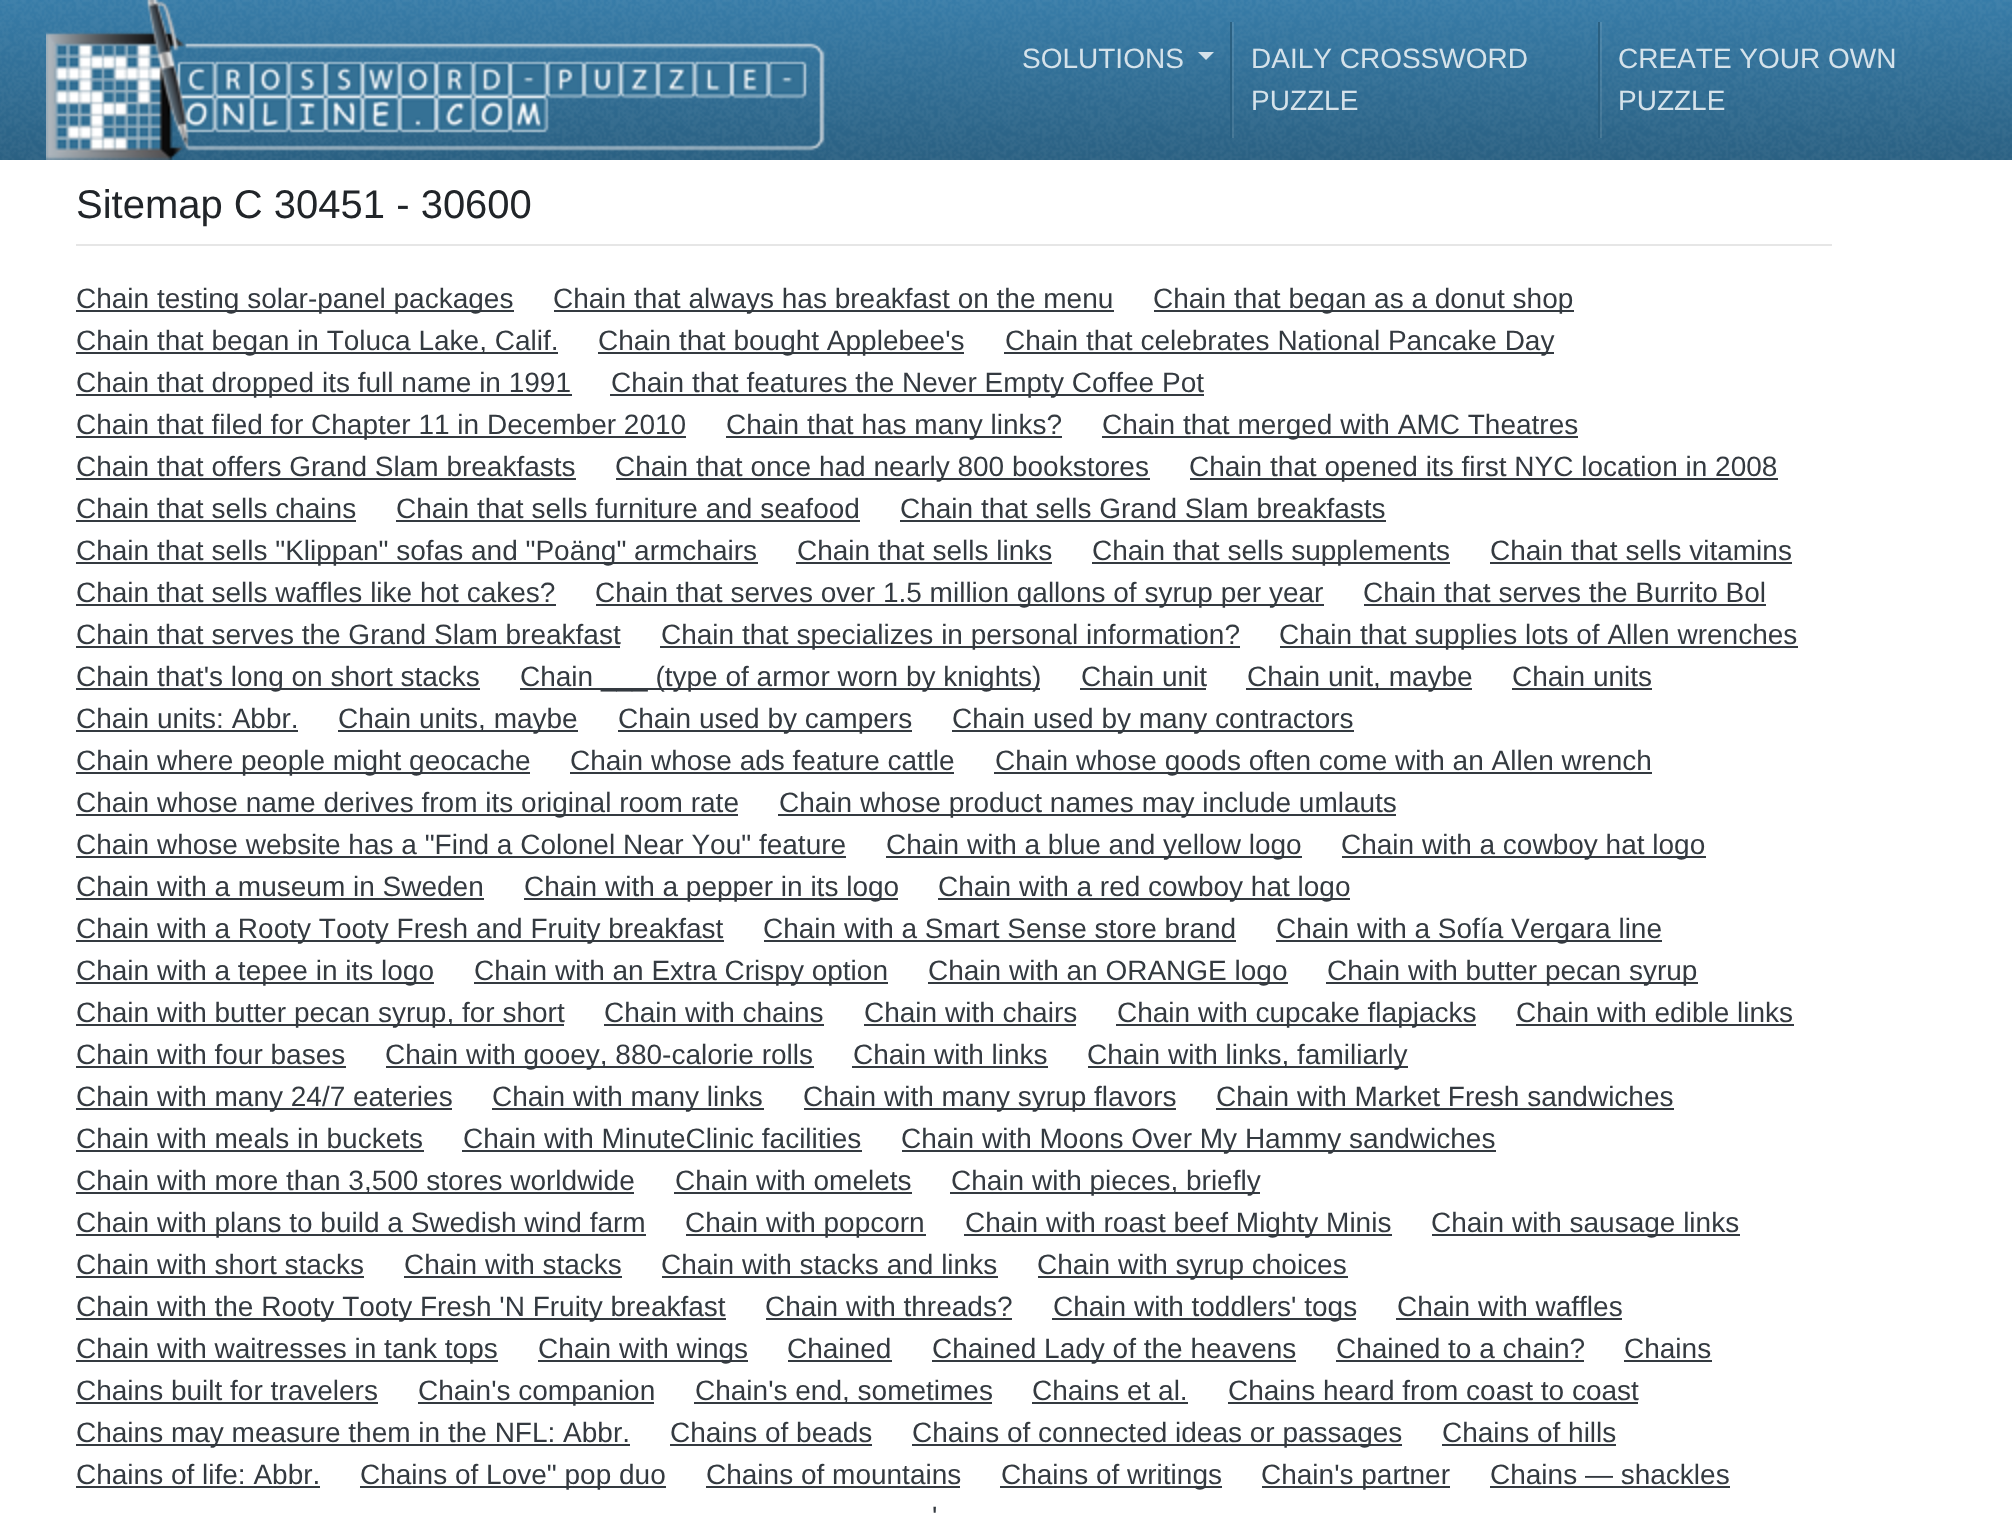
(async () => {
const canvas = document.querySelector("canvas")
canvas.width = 2012
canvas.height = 1517
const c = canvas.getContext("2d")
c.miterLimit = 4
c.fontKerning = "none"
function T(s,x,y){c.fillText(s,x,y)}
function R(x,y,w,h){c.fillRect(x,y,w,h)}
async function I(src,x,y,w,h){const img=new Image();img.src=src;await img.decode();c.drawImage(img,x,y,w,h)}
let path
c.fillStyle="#fff"
R(0,0,2012,1517)
await I("1.png",0,0,2012,160)
await I("2.png",46,0,779,160)
c.fillStyle="#2a6082"
R(1230,22,2,116)
c.font="28px Liberation Sans"
c.fillStyle="#d5e2ea"
T("SOLUTIONS",1022,68)
path = new Path2D("M1198 52h16l-8 8z")
c.fill(path)
c.fillStyle="#2a6082"
R(1598,22,2,116)
c.fillStyle="#ffffff1a"
R(1232,22,2,116)
c.fillStyle="#d5e2ea"
T("DAILY CROSSWORD",1251,68)
T("PUZZLE",1251,110)
c.fillStyle="#ffffff1a"
R(1600,22,2,116)
c.fillStyle="#d5e2ea"
T("CREATE YOUR OWN",1618,68)
T("PUZZLE",1618,110)
c.font="40px Liberation Sans"
c.fillStyle="#212529"
T("Sitemap C 30451 - 30600",76,218)
c.fillStyle="#e6e6e6"
R(76,244,1756,2)
c.fillStyle="#343a40"
R(76,310,438,2)
c.font="28px Liberation Sans"
T("Chain testing solar-panel packages",76,308)
R(554,310,560,2)
T("Chain that always has breakfast on the menu",553,308)
R(1154,310,420,2)
T("Chain that began as a donut shop",1153,308)
R(76,352,482,2)
T("Chain that began in Toluca Lake, Calif.",76,350)
R(598,352,366,2)
T("Chain that bought Applebee's",598,350)
R(1004,352,550,2)
T("Chain that celebrates National Pancake Day",1005,350)
R(76,394,496,2)
T("Chain that dropped its full name in 1991",76,392)
R(610,394,594,2)
T("Chain that features the Never Empty Coffee Pot",611,392)
R(76,436,610,2)
T("Chain that filed for Chapter 11 in December 2010",76,434)
R(726,436,336,2)
T("Chain that has many links?",726,434)
R(1102,436,476,2)
T("Chain that merged with AMC Theatres",1102,434)
T("Chain that offers Grand Slam breakfasts",76,476)
R(76,478,500,2)
R(616,478,534,2)
T("Chain that once had nearly 800 bookstores",615,476)
R(1190,478,588,2)
T("Chain that opened its first NYC location in 2008",1189,476)
T("Chain that sells chains",76,518)
R(76,520,280,2)
T("Chain that sells furniture and seafood",396,518)
R(396,520,464,2)
T("Chain that sells Grand Slam breakfasts",900,518)
R(900,520,486,2)
R(76,562,682,2)
T("Chain that sells \"Klippan\" sofas and \"Poäng\" armchairs",76,560)
T("Chain that sells links",797,560)
R(796,562,256,2)
R(1092,562,358,2)
T("Chain that sells supplements",1092,560)
T("Chain that sells vitamins",1490,560)
R(1490,562,302,2)
T("Chain that sells waffles like hot cakes?",76,602)
R(76,604,480,2)
R(596,604,728,2)
T("Chain that serves over 1.5 million gallons of syrup per year",595,602)
T("Chain that serves the Burrito Bol",1363,602)
R(1364,604,402,2)
T("Chain that serves the Grand Slam breakfast",76,644)
R(76,646,544,2)
R(660,646,580,2)
T("Chain that specializes in personal information?",661,644)
R(1280,646,518,2)
T("Chain that supplies lots of Allen wrenches",1279,644)
R(76,688,404,2)
T("Chain that's long on short stacks",76,686)
R(520,688,520,2)
T("Chain ___ (type of armor worn by knights)",520,686)
T("Chain unit",1081,686)
R(1080,688,126,2)
R(1246,688,226,2)
T("Chain unit, maybe",1247,686)
T("Chain units",1512,686)
R(1512,688,140,2)
T("Chain units: Abbr.",76,728)
R(76,730,222,2)
R(338,730,240,2)
T("Chain units, maybe",338,728)
R(618,730,294,2)
T("Chain used by campers",618,728)
R(952,730,402,2)
T("Chain used by many contractors",952,728)
R(76,772,454,2)
T("Chain where people might geocache",76,770)
T("Chain whose ads feature cattle",570,770)
R(570,772,384,2)
R(994,772,658,2)
T("Chain whose goods often come with an Allen wrench",995,770)
R(76,814,662,2)
T("Chain whose name derives from its original room rate",76,812)
R(778,814,618,2)
T("Chain whose product names may include umlauts",779,812)
T("Chain whose website has a \"Find a Colonel Near You\" feature",76,854)
R(76,856,770,2)
R(886,856,416,2)
T("Chain with a blue and yellow logo",886,854)
R(1342,856,364,2)
T("Chain with a cowboy hat logo",1341,854)
T("Chain with a museum in Sweden",76,896)
R(76,898,408,2)
R(524,898,374,2)
T("Chain with a pepper in its logo",524,896)
R(938,898,412,2)
T("Chain with a red cowboy hat logo",938,896)
R(76,940,648,2)
T("Chain with a Rooty Tooty Fresh and Fruity breakfast",76,938)
T("Chain with a Smart Sense store brand",763,938)
R(764,940,472,2)
R(1276,940,386,2)
T("Chain with a Sofía Vergara line",1276,938)
R(76,982,358,2)
T("Chain with a tepee in its logo",76,980)
R(474,982,414,2)
T("Chain with an Extra Crispy option",474,980)
R(928,982,360,2)
T("Chain with an ORANGE logo",928,980)
R(1326,982,372,2)
T("Chain with butter pecan syrup",1327,980)
R(76,1024,488,2)
T("Chain with butter pecan syrup, for short",76,1022)
T("Chain with chains",604,1022)
R(604,1024,220,2)
T("Chain with chairs",864,1022)
R(864,1024,212,2)
R(1116,1024,360,2)
T("Chain with cupcake flapjacks",1117,1022)
T("Chain with edible links",1516,1022)
R(1516,1024,278,2)
T("Chain with four bases",76,1064)
R(76,1066,270,2)
R(386,1066,428,2)
T("Chain with gooey, 880-calorie rolls",385,1064)
T("Chain with links",853,1064)
R(852,1066,196,2)
R(1088,1066,320,2)
T("Chain with links, familiarly",1087,1064)
R(76,1108,376,2)
T("Chain with many 24/7 eateries",76,1106)
R(492,1108,272,2)
T("Chain with many links",492,1106)
R(804,1108,372,2)
T("Chain with many syrup flavors",803,1106)
T("Chain with Market Fresh sandwiches",1216,1106)
R(1216,1108,458,2)
T("Chain with meals in buckets",76,1148)
R(76,1150,348,2)
T("Chain with MinuteClinic facilities",463,1148)
R(462,1150,400,2)
R(902,1150,594,2)
T("Chain with Moons Over My Hammy sandwiches",901,1148)
R(76,1192,558,2)
T("Chain with more than 3,500 stores worldwide",76,1190)
T("Chain with omelets",675,1190)
R(674,1192,238,2)
R(950,1192,310,2)
T("Chain with pieces, briefly",951,1190)
R(76,1234,570,2)
T("Chain with plans to build a Swedish wind farm",76,1232)
R(686,1234,240,2)
T("Chain with popcorn",685,1232)
R(964,1234,428,2)
T("Chain with roast beef Mighty Minis",965,1232)
R(1432,1234,308,2)
T("Chain with sausage links",1431,1232)
T("Chain with short stacks",76,1274)
R(76,1276,288,2)
T("Chain with stacks",404,1274)
R(404,1276,218,2)
T("Chain with stacks and links",661,1274)
R(662,1276,336,2)
R(1038,1276,310,2)
T("Chain with syrup choices",1037,1274)
R(76,1318,650,2)
T("Chain with the Rooty Tooty Fresh 'N Fruity breakfast",76,1316)
T("Chain with threads?",765,1316)
R(766,1318,246,2)
R(1052,1318,304,2)
T("Chain with toddlers' togs",1053,1316)
T("Chain with waffles",1397,1316)
R(1396,1318,226,2)
R(76,1360,422,2)
T("Chain with waitresses in tank tops",76,1358)
R(538,1360,210,2)
T("Chain with wings",538,1358)
T("Chained",787,1358)
R(788,1360,104,2)
R(932,1360,364,2)
T("Chained Lady of the heavens",932,1358)
T("Chained to a chain?",1336,1358)
R(1336,1360,248,2)
T("Chains",1624,1358)
R(1624,1360,88,2)
T("Chains built for travelers",76,1400)
R(76,1402,302,2)
R(418,1402,236,2)
T("Chain's companion",418,1400)
R(694,1402,298,2)
T("Chain's end, sometimes",695,1400)
T("Chains et al.",1032,1400)
R(1032,1402,156,2)
T("Chains heard from coast to coast",1228,1400)
R(1228,1402,410,2)
R(76,1444,554,2)
T("Chains may measure them in the NFL: Abbr.",76,1442)
T("Chains of beads",670,1442)
R(670,1444,202,2)
R(912,1444,490,2)
T("Chains of connected ideas or passages",912,1442)
T("Chains of hills",1442,1442)
R(1442,1444,174,2)
T("Chains of life: Abbr.",76,1484)
R(76,1486,244,2)
R(360,1486,306,2)
T("Chains of Love\" pop duo",360,1484)
T("Chains of mountains",706,1484)
R(706,1486,254,2)
R(1000,1486,222,2)
T("Chains of writings",1001,1484)
R(1262,1486,188,2)
T("Chain's partner",1261,1484)
T("Chains — shackles",1490,1484)
R(1490,1486,240,2)
T("'",932,1526)
})()
